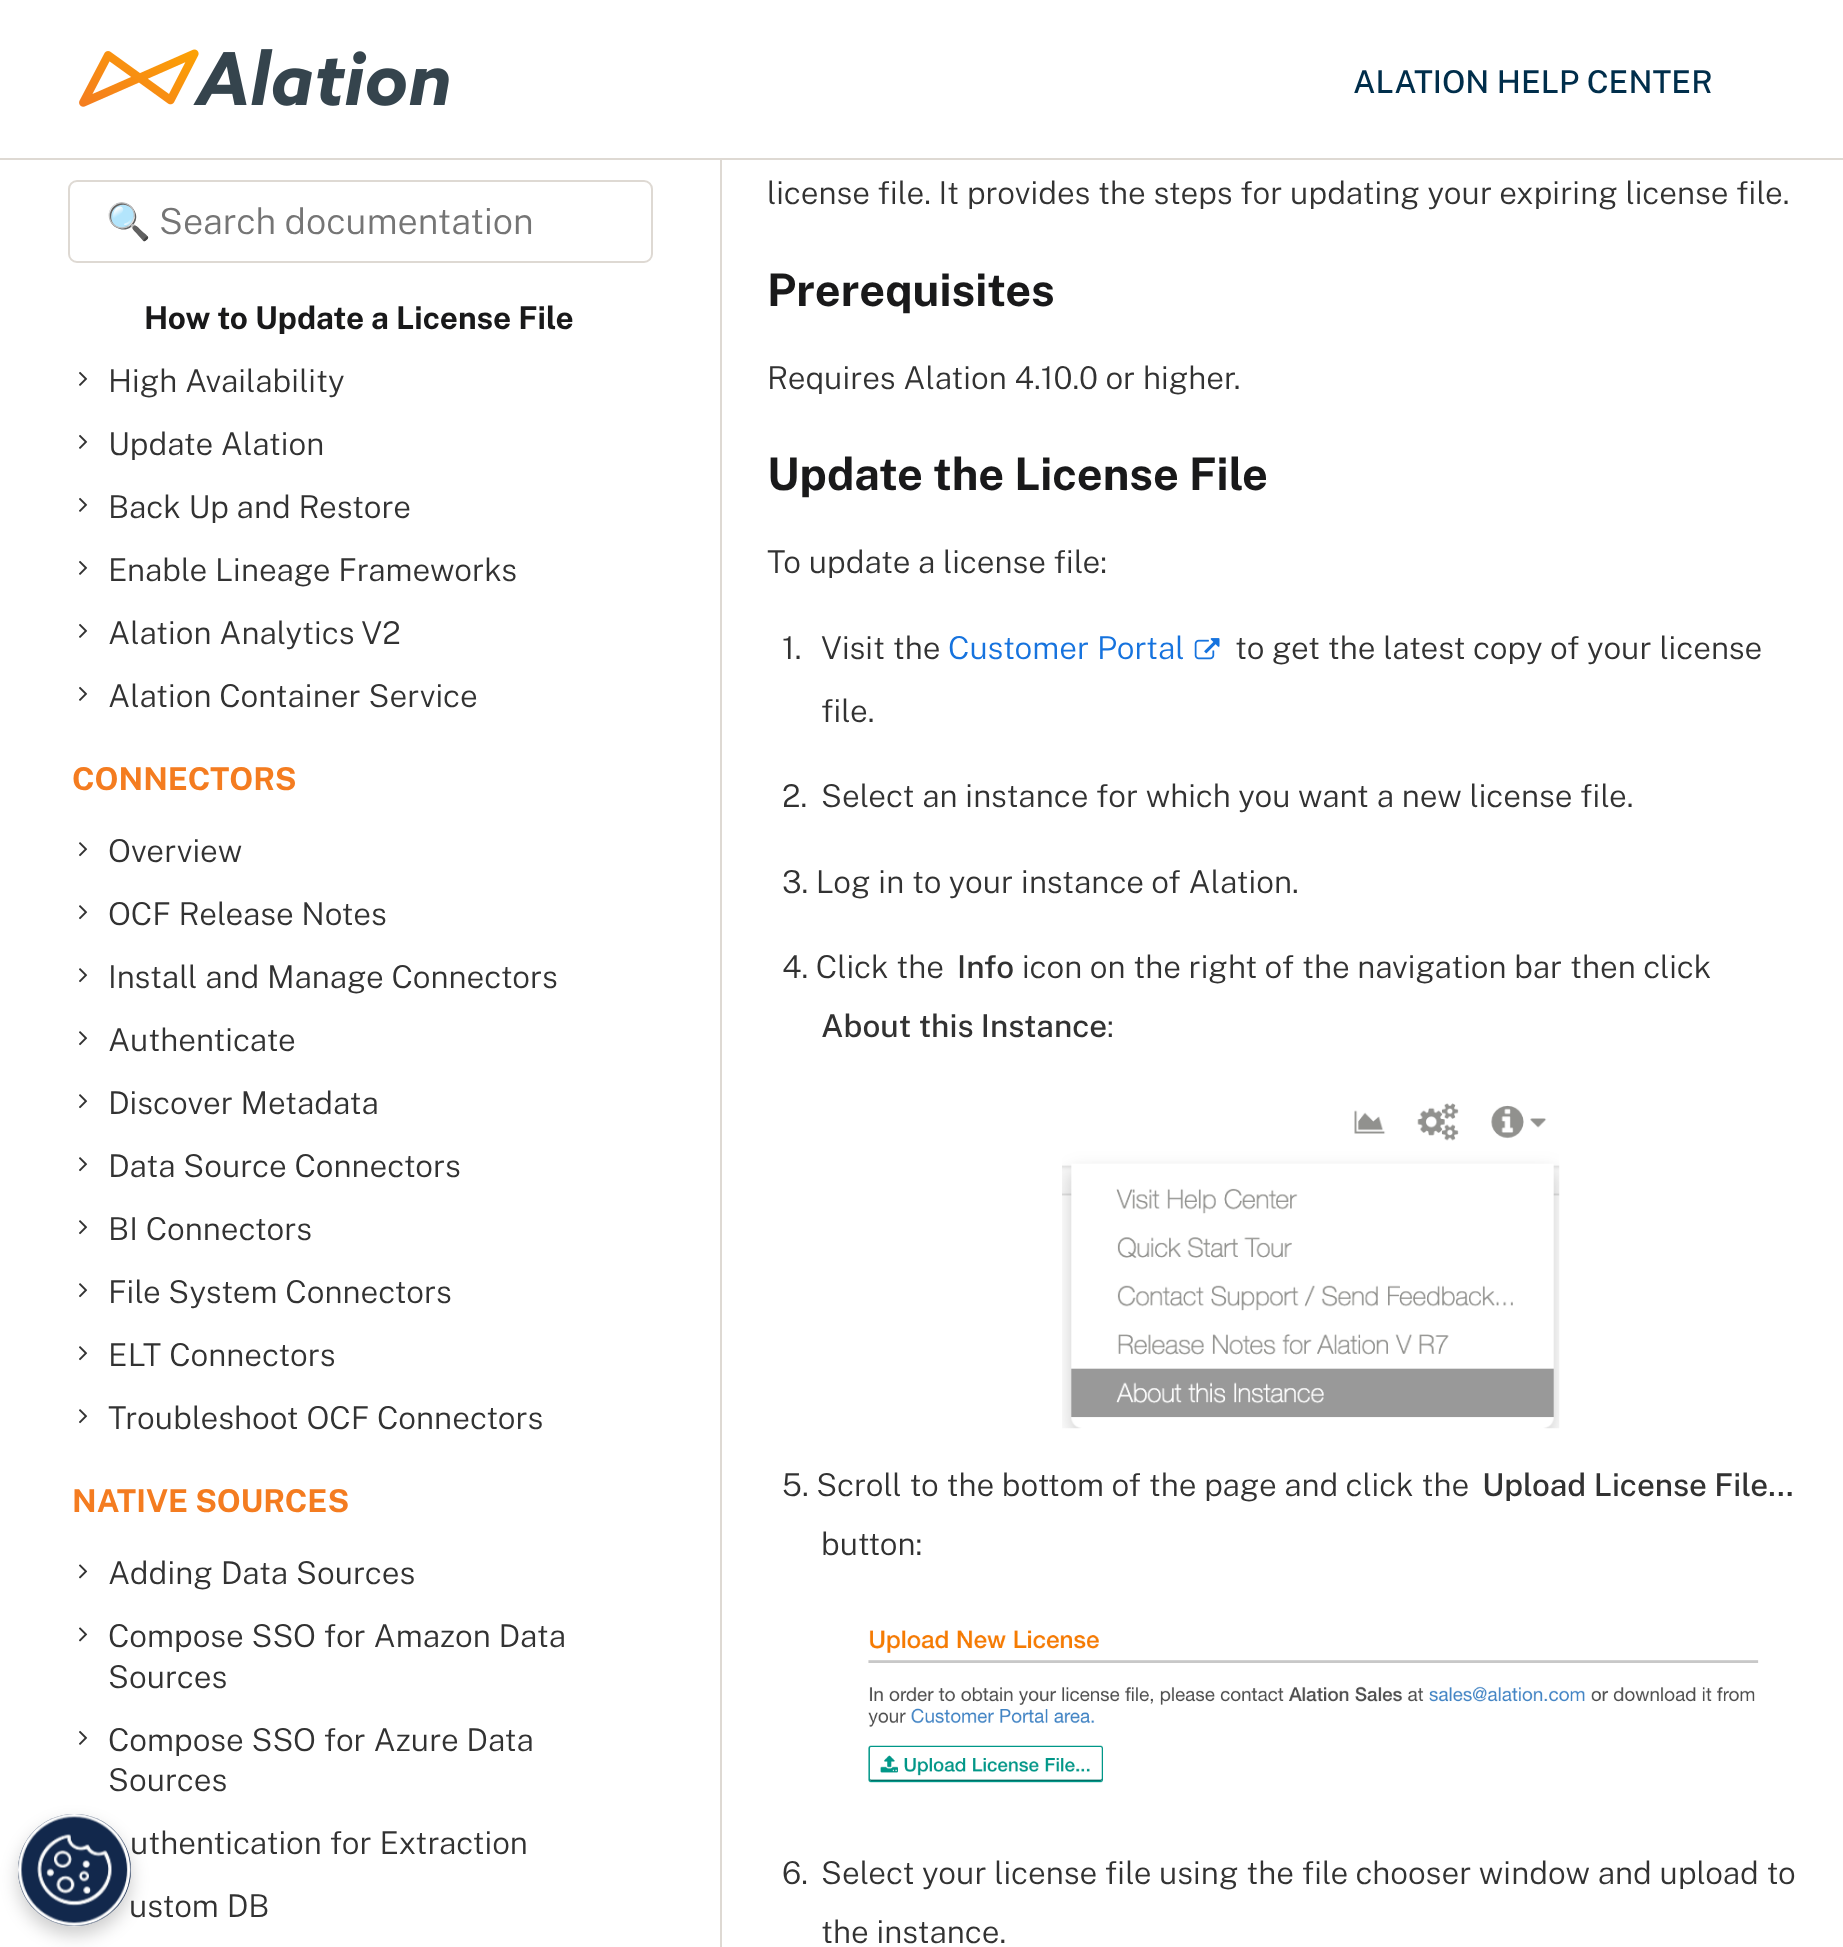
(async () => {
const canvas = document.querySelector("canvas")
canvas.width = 1843
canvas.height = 1947
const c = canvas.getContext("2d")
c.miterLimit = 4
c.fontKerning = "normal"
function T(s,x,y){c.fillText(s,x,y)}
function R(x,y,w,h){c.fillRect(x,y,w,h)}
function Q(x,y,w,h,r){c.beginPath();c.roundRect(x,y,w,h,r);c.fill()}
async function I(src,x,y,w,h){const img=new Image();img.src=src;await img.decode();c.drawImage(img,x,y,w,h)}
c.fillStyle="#fff"
R(0,0,1843,1947)
c.fillStyle="#ded9d3"
R(0,158,1843,2)
await I("1.png",79,49,370,58)
c.font="500 31.5px Public Sans"
c.fillStyle="#002e4b"
T("ALATION HELP CENTER",1353,93)
c.fillStyle="#ded9d3"
R(720,160,2,1787)
c.beginPath()
c.roundRect(69,181,583,81,8)
c.strokeStyle="#ded9d3"
c.lineWidth=2
c.stroke()
c.save()
c.beginPath()
c.rect(106,200,508,43)
c.clip()
c.font="36px Noto Color Emoji"
c.fillStyle="#757575"
T("🔍",106,234)
c.restore()
c.font="300 36px Public Sans"
c.fillStyle="#757575"
T("Search documentation",159,234)
c.font="bold 31.5px Public Sans"
c.fillStyle="#19191a"
T("How to Update a License File",144,329)
await I("2.png",79,371,9,15)
c.font="300 31.5px Public Sans"
c.fillStyle="#323232"
T("High Availability",108,392)
await I("2.png",79,434,9,15)
T("Update Alation",108,455)
await I("2.png",79,497,9,15)
T("Back Up and Restore",108,518)
await I("2.png",79,560,9,15)
T("Enable Lineage Frameworks",108,581)
await I("2.png",79,623,9,15)
T("Alation Analytics V2",108,644)
await I("2.png",79,686,9,15)
T("Alation Container Service",108,707)
c.font="bold 31.5px Public Sans"
c.fillStyle="#f47c20"
T("CONNECTORS",72,790)
await I("3.png",79,842,9,15)
c.font="300 31.5px Public Sans"
c.fillStyle="#323232"
T("Overview",108,862)
await I("3.png",79,905,9,15)
T("OCF Release Notes",108,925)
await I("3.png",79,968,9,15)
T("Install and Manage Connectors",108,988)
await I("3.png",79,1031,9,15)
T("Authenticate",108,1051)
await I("3.png",79,1094,9,15)
T("Discover Metadata",108,1114)
await I("3.png",79,1157,9,15)
T("Data Source Connectors",108,1177)
await I("3.png",79,1220,9,15)
T("BI Connectors",108,1240)
await I("3.png",79,1283,9,15)
T("File System Connectors",108,1303)
await I("3.png",79,1346,9,15)
T("ELT Connectors",108,1366)
await I("3.png",79,1409,9,15)
T("Troubleshoot OCF Connectors",108,1429)
c.font="bold 31.5px Public Sans"
c.fillStyle="#f47c20"
T("NATIVE SOURCES",72,1512)
await I("4.png",79,1564,9,15)
c.font="300 31.5px Public Sans"
c.fillStyle="#323232"
T("Adding Data Sources",108,1584)
await I("4.png",79,1627,9,15)
T("Compose SSO for Amazon Data",108,1647)
T("Sources",108,1688)
await I("2.png",79,1730,9,15)
T("Compose SSO for Azure Data",108,1751)
T("Sources",108,1791)
T("uthentication for Extraction",130,1854)
T("ustom DB",129,1917)
T("license file. It provides the steps for updating your expiring license file.",767,204)
c.font="bold 45px Public Sans"
c.fillStyle="#19191a"
T("Prerequisites",767,306)
c.font="300 31.5px Public Sans"
c.fillStyle="#323232"
T("Requires Alation 4.10.0 or higher.",767,389)
c.font="bold 45px Public Sans"
c.fillStyle="#19191a"
T("Update the License File",767,490)
c.font="300 31.5px Public Sans"
c.fillStyle="#323232"
T("To update a license file:",767,573)
T("1.",782,659)
T("Visit the",821,659)
c.fillStyle="#1673de"
T("Customer Portal",948,659)
await I("5.png",1194,638,26,22)
c.fillStyle="#323232"
T("to get the latest copy of your license",1235,659)
T("file.",821,722)
T("2.",782,807)
T("Select an instance for which you want a new license file.",821,807)
T("3. Log in to your instance of Alation.",782,893)
T("4. Click the",782,978)
c.font="500 31.5px Public Sans"
T("Info",957,978)
c.font="300 31.5px Public Sans"
T("icon on the right of the navigation bar then click",1022,978)
c.font="500 31.5px Public Sans"
T("About this Instance",821,1037)
c.font="300 31.5px Public Sans"
T(":",1107,1037)
await I("6.png",1062,1103,498,326)
T("5. Scroll to the bottom of the page and click the",782,1496)
c.font="500 31.5px Public Sans"
T("Upload License File…",1482,1496)
c.font="300 31.5px Public Sans"
T("button:",821,1555)
await I("7.png",868,1630,891,153)
T("6.",782,1884)
T("Select your license file using the file chooser window and upload to",821,1884)
T("the instance.",821,1943)
c.fillStyle="#00000033"
c.filter="blur(9px)"
c.beginPath()
c.roundRect(18,1823,113,112,56)
c.fill()
c.filter="none"
c.fillStyle="#12284c"
Q(18,1814,113,112,56)
await I("8.png",18,1814,113,113)
})()
